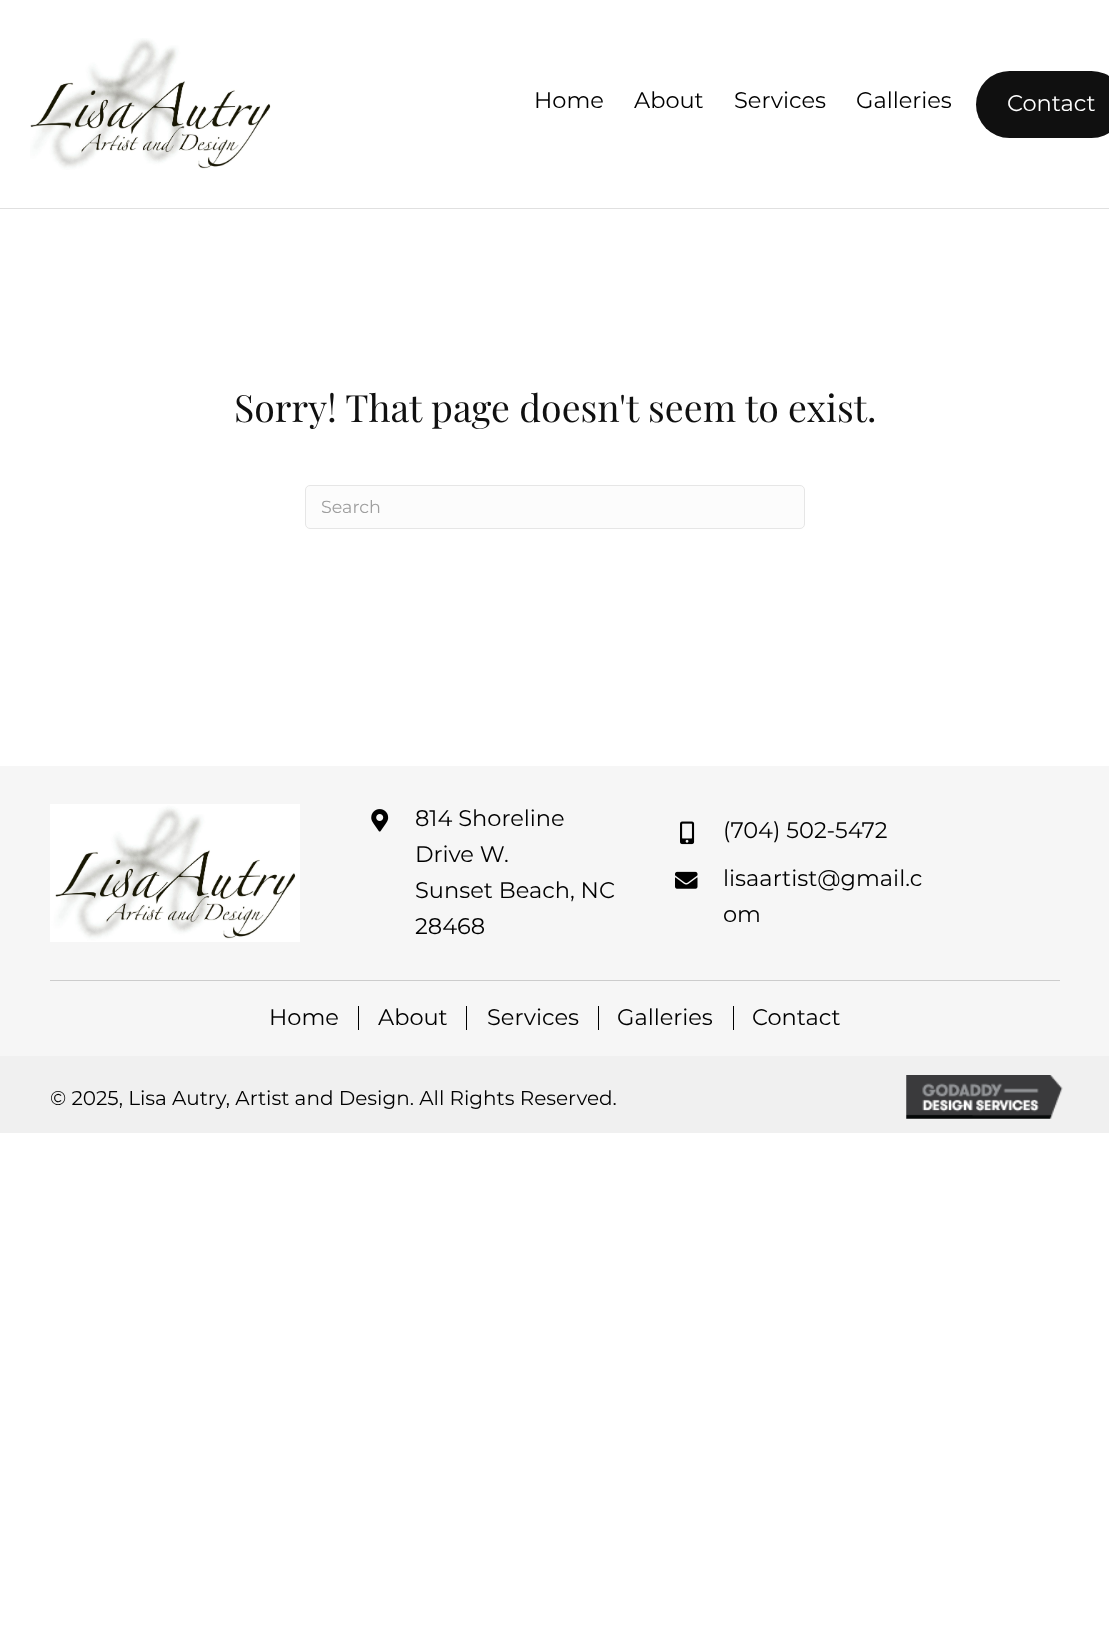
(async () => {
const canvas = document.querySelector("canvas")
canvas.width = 1109
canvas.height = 1625
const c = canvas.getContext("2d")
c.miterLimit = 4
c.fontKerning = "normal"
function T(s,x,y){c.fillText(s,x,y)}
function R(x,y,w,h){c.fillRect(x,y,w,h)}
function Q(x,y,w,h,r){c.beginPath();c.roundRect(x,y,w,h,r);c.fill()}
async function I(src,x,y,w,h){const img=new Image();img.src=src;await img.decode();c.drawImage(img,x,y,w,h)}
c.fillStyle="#fff"
R(0,0,1109,1625)
c.fillStyle="#e0e0e0"
R(0,208,1109,1)
await I("1.png",30,38,241,132)
c.font="22.5px Montserrat"
c.fillStyle="#000"
T("Home",534,108)
T("About",634,108)
T("Services",734,108)
T("Galleries",856,108)
c.fillStyle="#101010"
Q(976,71,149,67,33.5)
c.fillStyle="#fff"
T("Contact",1007,111)
c.font="37.5px Playfair Display"
c.fillStyle="#101010"
T("Sorry! That page doesn't seem to exist.",234,422)
c.fillStyle="#fcfcfc"
c.beginPath()
c.roundRect(305.5,485.5,499,43,4.5)
c.fill()
c.strokeStyle="#e6e6e6"
c.stroke()
c.font="17.5px Montserrat"
c.fillStyle="#9e9e9e"
T("Search",321,513)
c.fillStyle="#f6f6f6"
R(0,766,1109,290)
await I("2.png",50,804,250,138)
await I("3.png",371,809,18,23)
c.font="22.5px Montserrat"
c.fillStyle="#000"
T("814 Shoreline",415,826)
T("Drive W.",415,862)
T("Sunset Beach, NC",415,898)
T("28468",415,934)
await I("4.png",680,821,15,24)
T("(704) 502-5472",723,838)
await I("5.png",675,871,23,18)
T("lisaartist@gmail.c",723,886)
T("om",723,922)
c.fillStyle="#ccc"
R(50,980,1010,1)
c.fillStyle="#000"
T("Home",269,1025)
R(358,1006,1,24)
T("About",378,1025)
R(466,1006,1,24)
T("Services",487,1025)
R(598,1006,1,24)
T("Galleries",617,1025)
R(733,1006,1,24)
T("Contact",752,1025)
c.fillStyle="#f0f0f0"
R(0,1056,1109,77)
c.font="20px Montserrat"
c.fillStyle="#000"
T("© 2025, Lisa Autry, Artist and Design. All Rights Reserved.",50,1105)
await I("6.png",906,1075,157,44)
})()
